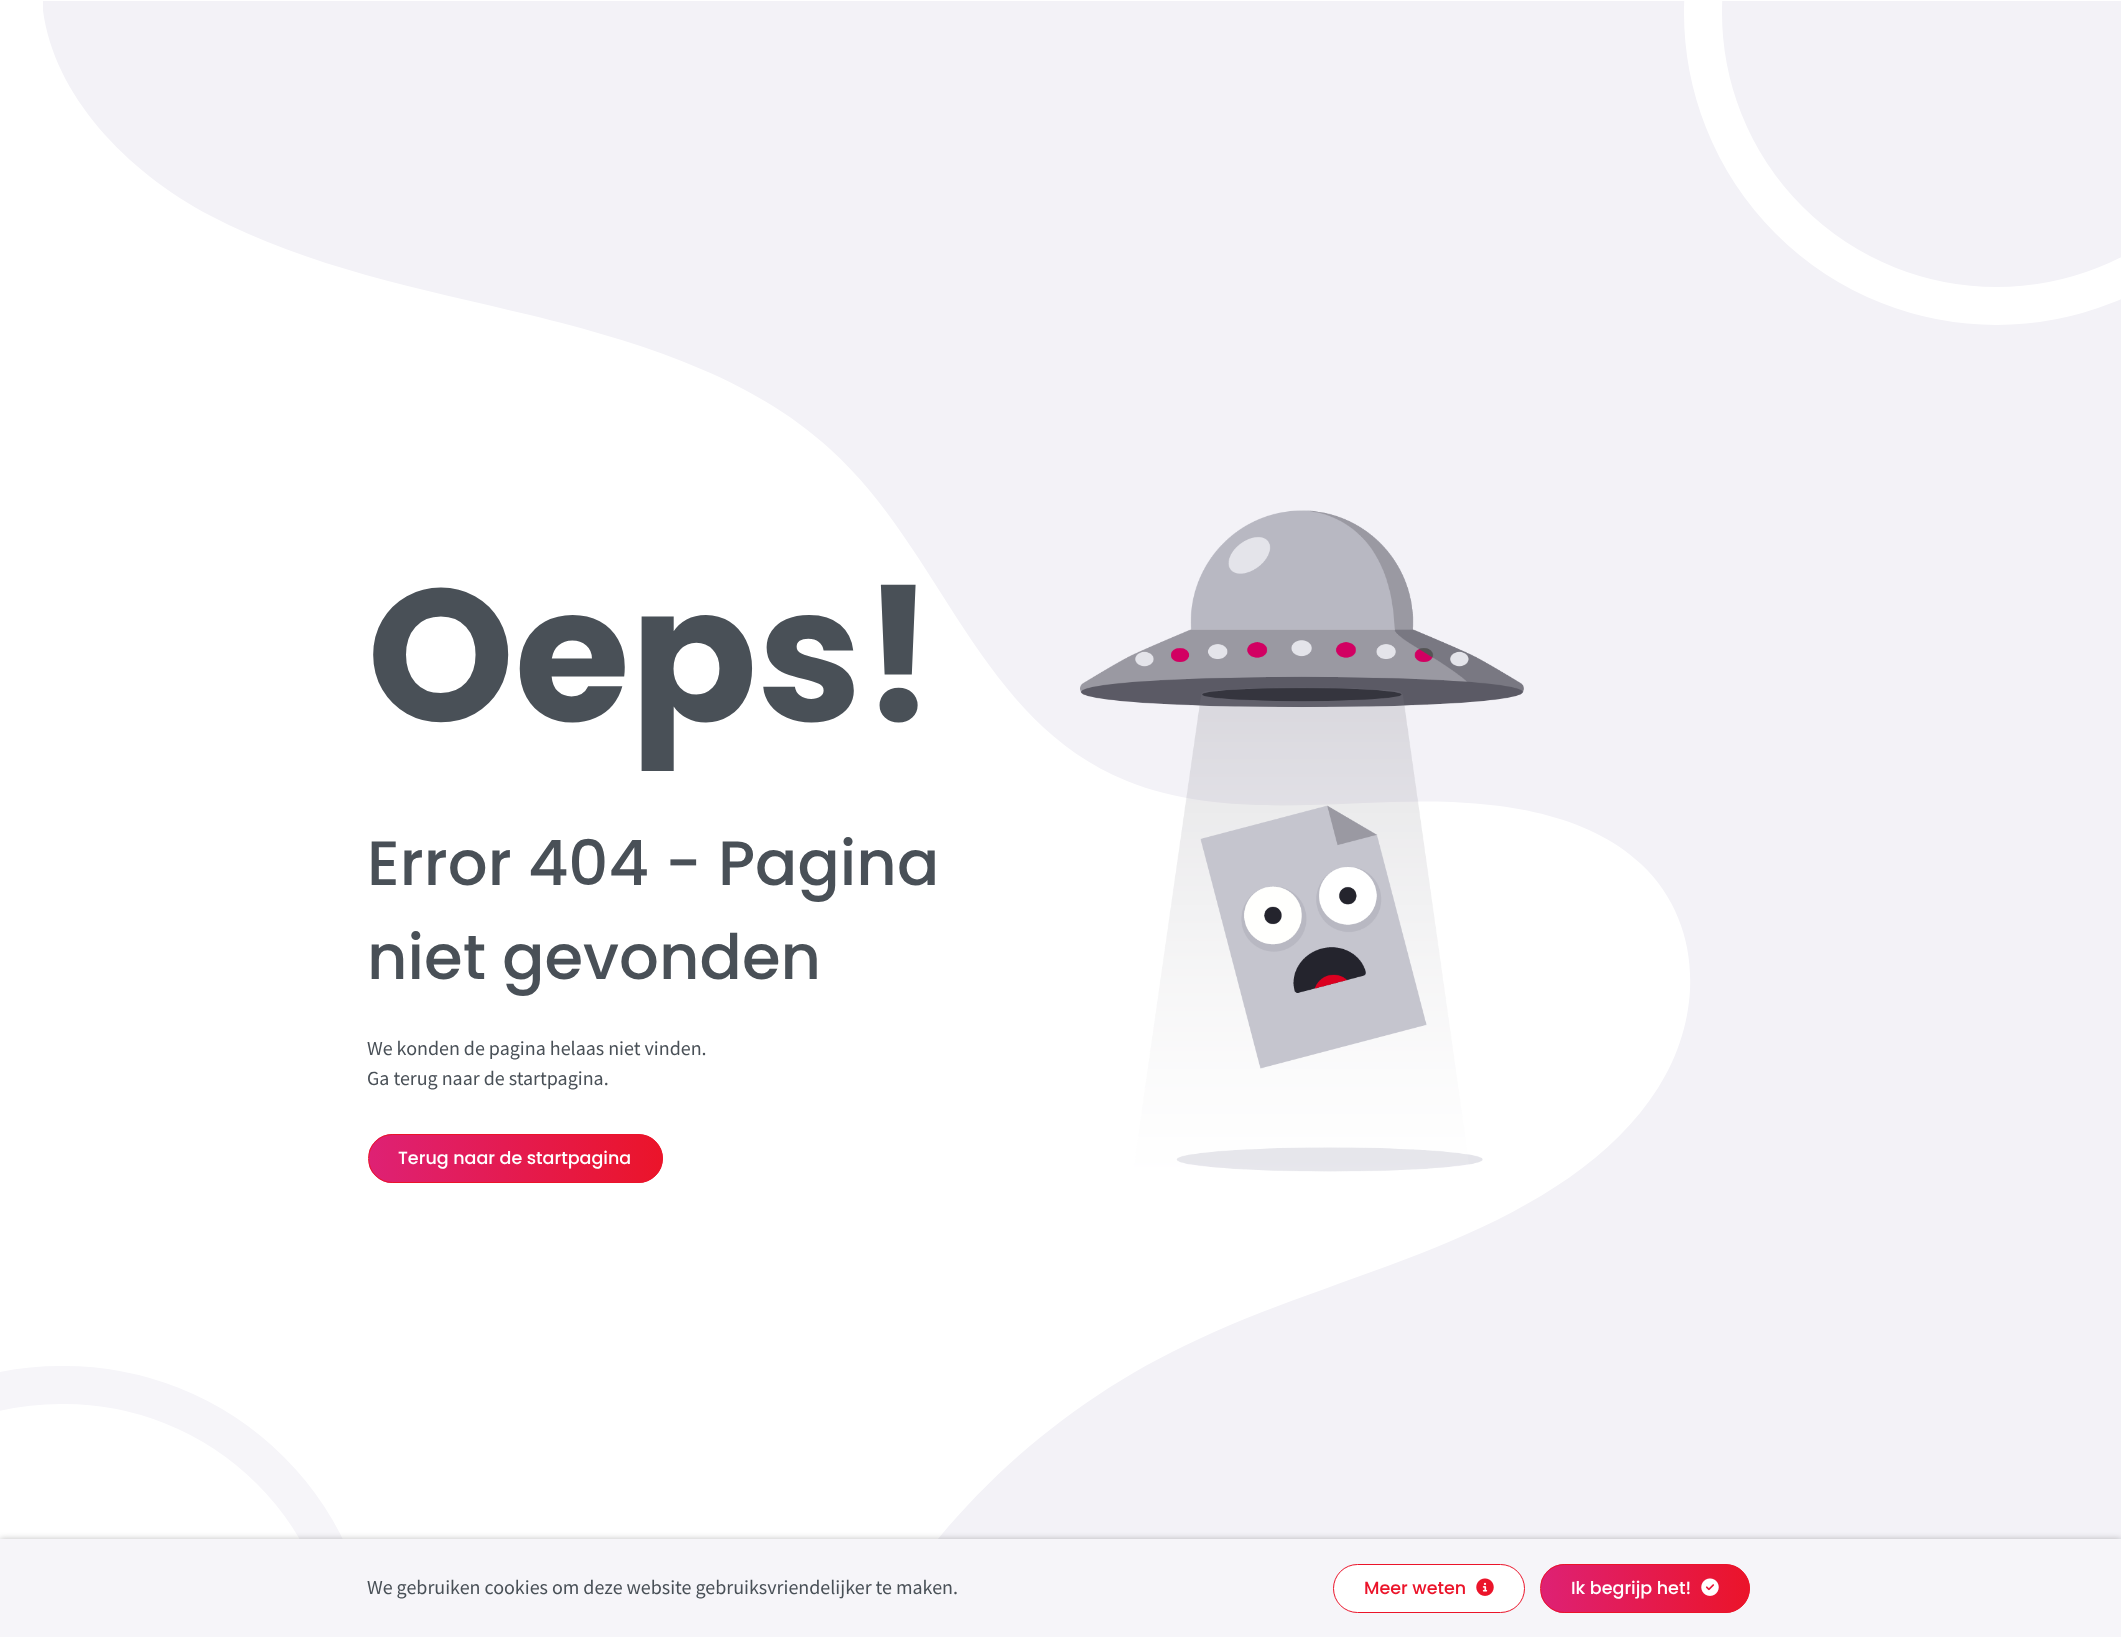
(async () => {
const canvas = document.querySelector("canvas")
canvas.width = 2121
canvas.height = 1637
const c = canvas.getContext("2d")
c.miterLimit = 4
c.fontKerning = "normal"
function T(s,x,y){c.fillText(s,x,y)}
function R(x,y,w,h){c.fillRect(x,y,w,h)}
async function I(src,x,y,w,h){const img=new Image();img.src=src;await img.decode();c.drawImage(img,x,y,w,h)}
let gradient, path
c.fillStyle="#fff"
R(0,0,2121,1637)
c.save()
c.beginPath()
c.rect(43,1,2078,1636)
c.clip()
c.fillStyle="#f3f2f7"
path = new Path2D("M2121 1v1636h-1251c72-125 186-233 329-298c81-38 170-63 252-98c83-35 163-83 207-153c45-70 46-165-17-224c-61-57-160-65-250-62c-89 3-183 12-264-21c-148-60-184-230-297-332c-78-72-190-107-300-134c-109-26-222-48-319-99c-89-47-162-127-169-215z")
c.fill(path)
c.restore()
c.beginPath()
c.arc(1996.5,12.5,293.5,0,7)
c.strokeStyle="#fff"
c.lineWidth=38
c.stroke()
c.font="bold 187.5px Poppins"
c.fillStyle="#495057"
T("Oeps!",367,721)
c.font="500 62.5px Poppins"
T("Error 404 - Pagina",367,885)
T("niet gevonden",367,979)
c.font="20px Source Sans Pro"
T("We konden de pagina helaas niet vinden.",367,1055)
T("Ga terug naar de startpagina.",367,1085)
c.save()
c.beginPath()
c.roundRect(368,1134,295,49,24.5)
c.clip()
gradient = c.createLinearGradient(369,1158,954,1158)
gradient.addColorStop(0,"#de2174")
gradient.addColorStop(.5,"#eb142a")
c.fillStyle = gradient
c.beginPath()
c.roundRect(369,1134,294,49,[0,24.5,24.5,0])
c.fill()
c.restore()
c.beginPath()
c.roundRect(368.5,1134.5,294,48,24)
c.strokeStyle="#eb142a"
c.lineWidth=1
c.stroke()
c.font="500 17.5px Poppins"
c.fillStyle="#fff"
T("Terug naar de startpagina",398,1164)
await I("1.png",1080,510,444,662)
c.beginPath()
c.roundRect(-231,1385,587,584,293.5)
c.strokeStyle="#f6f5f9"
c.lineWidth=38
c.stroke()
c.fillStyle="#00000040"
c.filter="blur(3px)"
c.beginPath()
c.rect(0,1539,2121,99)
c.fill()
c.filter="none"
c.fillStyle="#f6f5f9"
R(0,1539,2121,98)
c.font="20px Source Sans Pro"
c.fillStyle="#495057"
T("We gebruiken cookies om deze website gebruiksvriendelijker te maken.",367,1594)
c.fillStyle="#fff"
c.beginPath()
c.roundRect(1333.5,1564.5,191,48,24)
c.fill()
c.strokeStyle="#eb142a"
c.lineWidth=1
c.stroke()
c.font="500 17.5px Poppins"
c.fillStyle="#eb142a"
T("Meer weten",1364,1594)
await I("2.png",1476,1578,18,18)
c.save()
c.beginPath()
c.roundRect(1540,1564,210,49,24.5)
c.clip()
gradient = c.createLinearGradient(1541,1588,1956,1588)
gradient.addColorStop(0,"#de2174")
gradient.addColorStop(.5,"#eb142a")
c.fillStyle = gradient
c.beginPath()
c.roundRect(1541,1564,209,49,[0,24.5,24.5,0])
c.fill()
c.restore()
c.beginPath()
c.roundRect(1540.5,1564.5,209,48,24)
c.stroke()
c.fillStyle="#fff"
T("Ik begrijp het!",1571,1594)
await I("3.png",1701,1578,18,18)
})()
